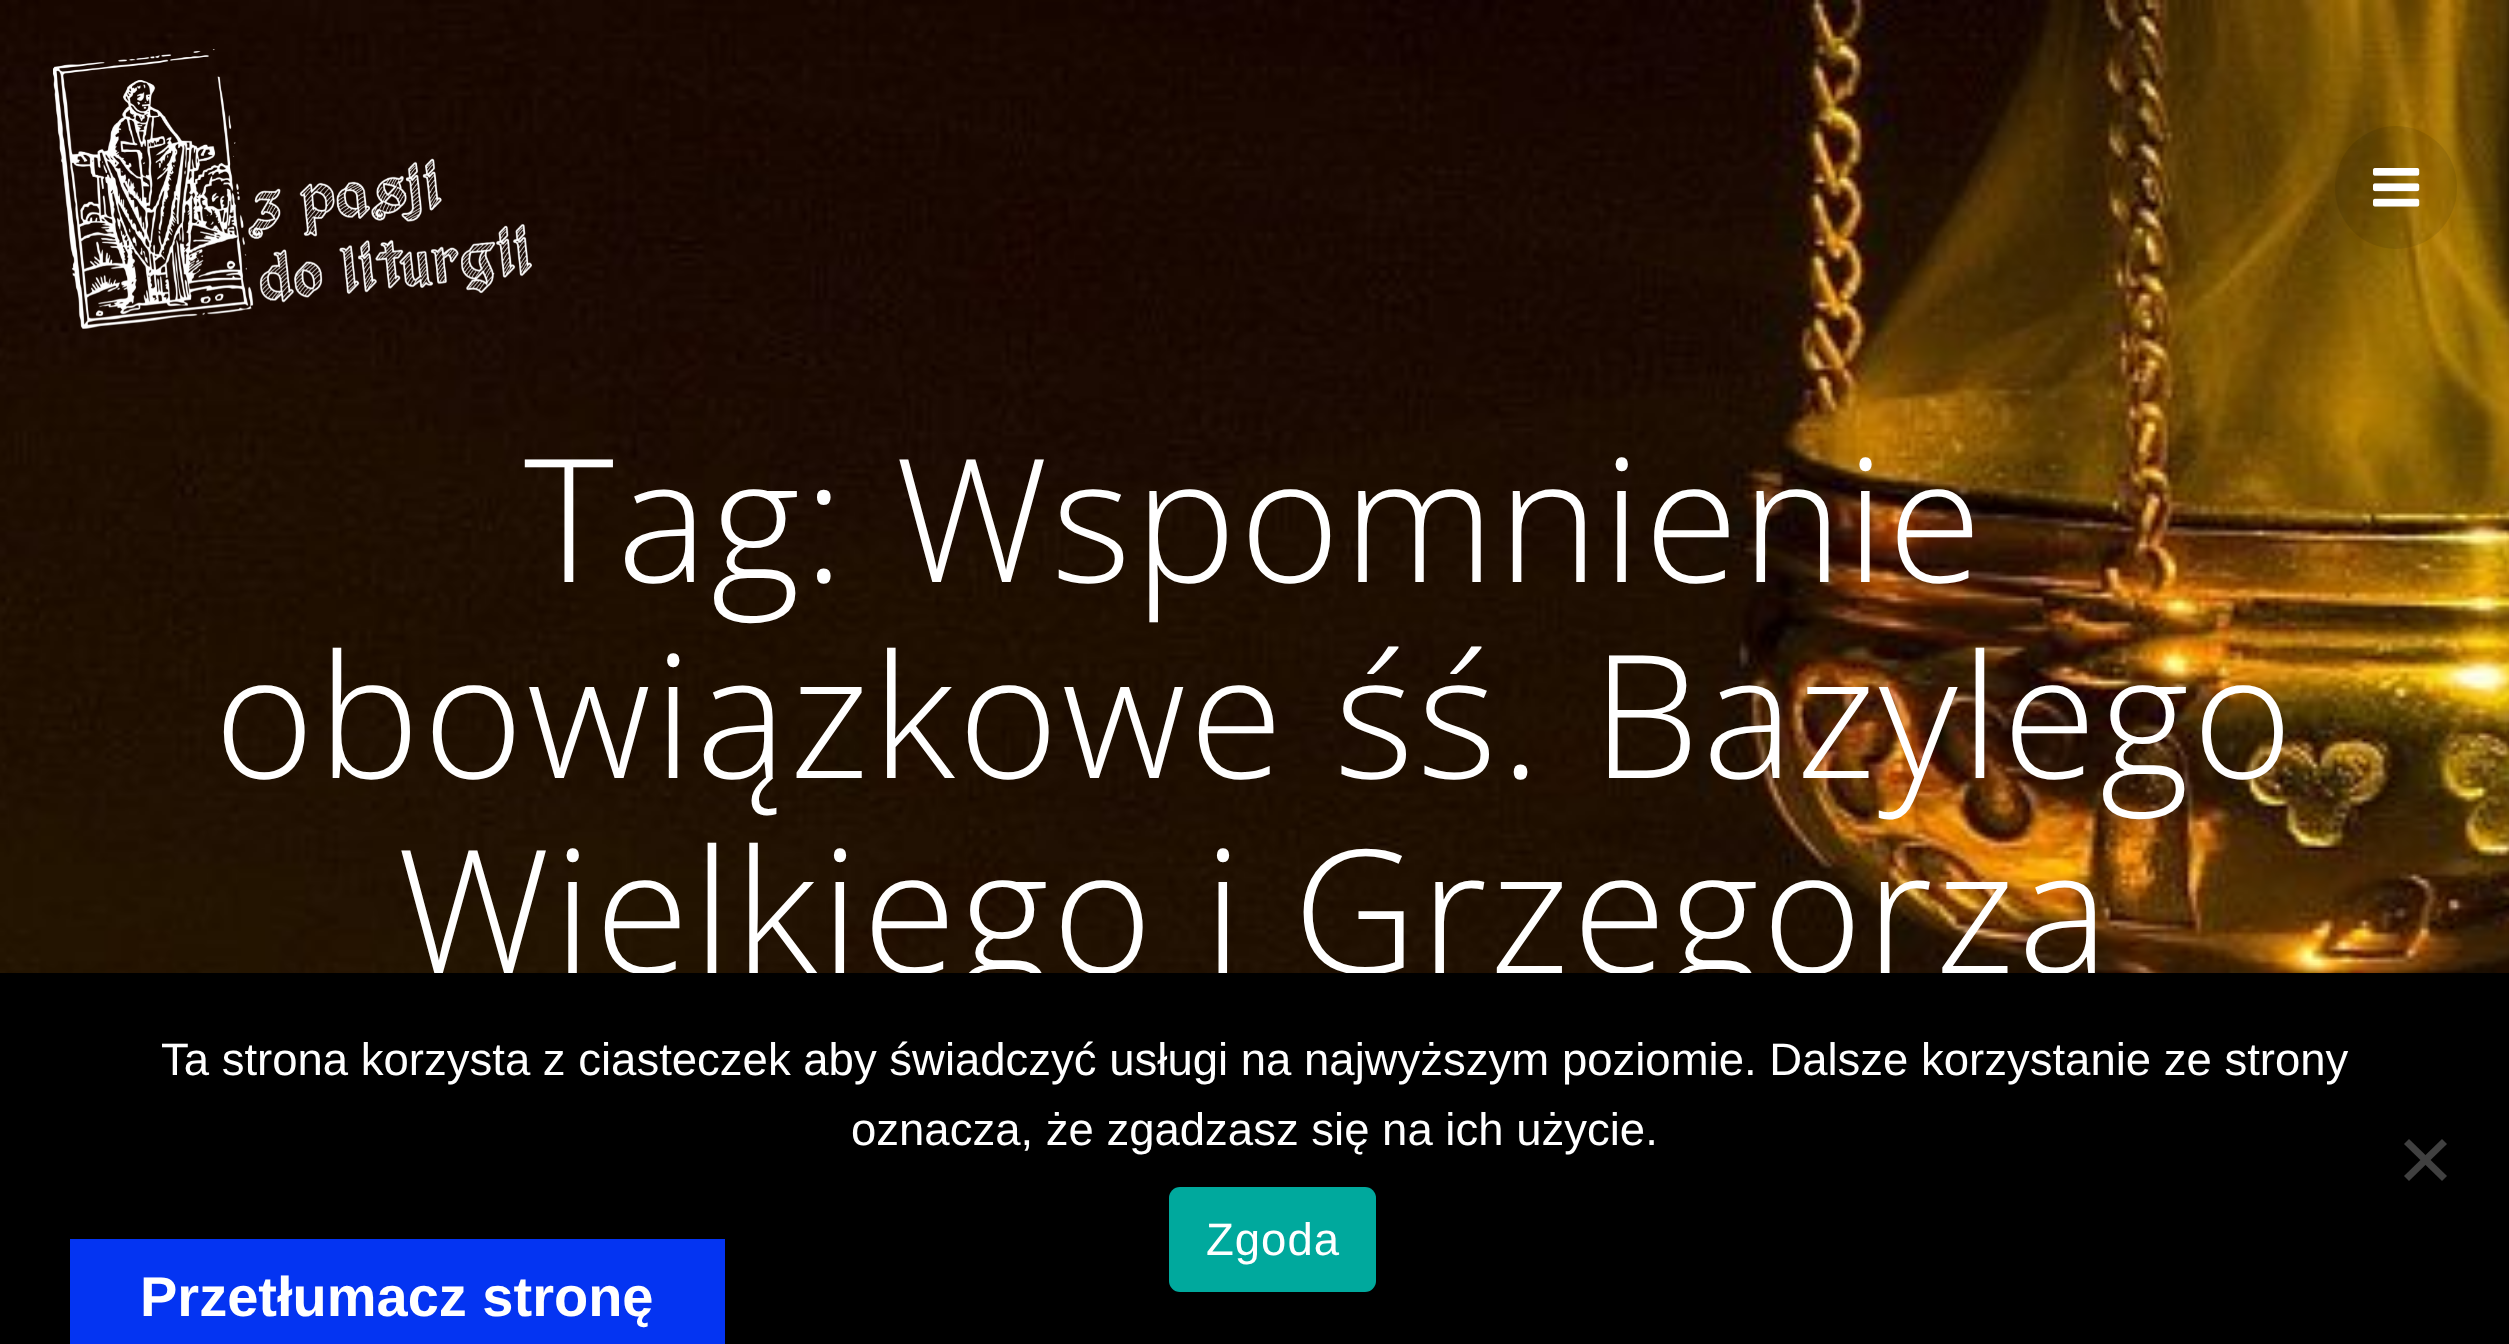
(async () => {
const canvas = document.querySelector("canvas")
canvas.width = 2509
canvas.height = 1344
const c = canvas.getContext("2d")
c.miterLimit = 4
c.fontKerning = "normal"
function T(s,x,y){c.fillText(s,x,y)}
function R(x,y,w,h){c.fillRect(x,y,w,h)}
function Q(x,y,w,h,r){c.beginPath();c.roundRect(x,y,w,h,r);c.fill()}
async function I(src,x,y,w,h){const img=new Image();img.src=src;await img.decode();c.drawImage(img,x,y,w,h)}
let path
c.fillStyle="#fff"
R(0,0,2509,1344)
await I("3.png",0,0,2509,973)
await I("1.png",53,49,479,280)
c.fillStyle="#0000001a"
Q(2335,126,122,123,61)
await I("2.png",2373,168,47,39)
c.letterSpacing="3.15px"
c.font="300 171.5px Open Sans"
c.fillStyle="#fff"
T("Tag: Wspomnienie",524,582)
T("obowiązkowe śś. Bazylego",214,778)
T("Wielkiego i Grzegorza",397,973)
c.fillStyle="#000"
R(0,973,2509,371)
c.letterSpacing="0px"
c.font="45.5px Liberation Sans"
c.fillStyle="#fff"
T("Ta strona korzysta z ciasteczek aby świadczyć usługi na najwyższym poziomie. Dalsze korzystanie ze strony",161,1075)
T("oznacza, że zgadzasz się na ich użycie.",851,1145)
c.fillStyle="#404040"
path = new Path2D("M2442 1139l5 5l-38 37l-5-5z")
c.fill(path)
path = new Path2D("M2404 1144l5-5l38 37l-5 5z")
c.fill(path)
c.fillStyle="#00a99d"
Q(1169,1187,207,105,11)
c.letterSpacing="1px"
c.fillStyle="#fff"
T("Zgoda",1206,1255)
c.fillStyle="#0434f2"
R(70,1239,655,105)
c.letterSpacing="0px"
c.font="bold 56px Liberation Sans"
c.fillStyle="#fff"
T("Przetłumacz stronę",140,1316)
})()
